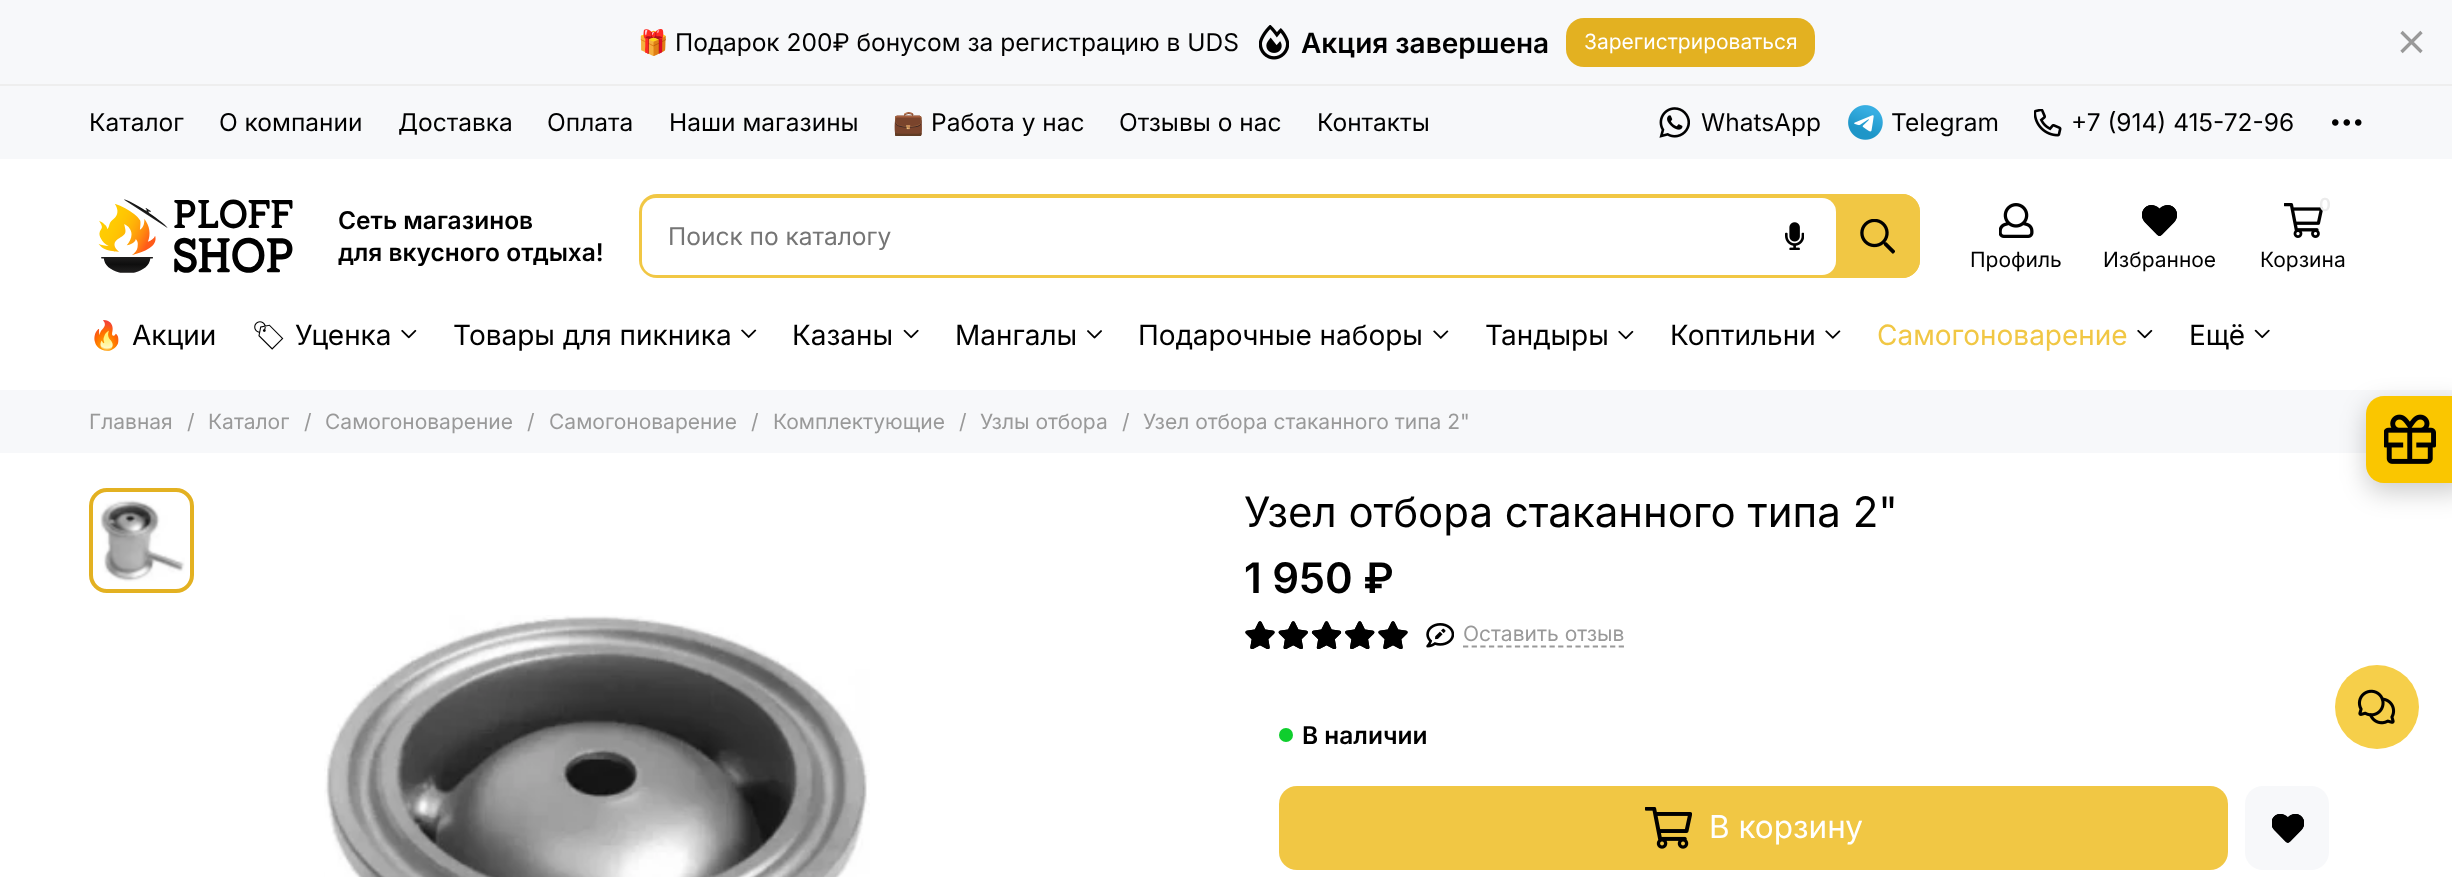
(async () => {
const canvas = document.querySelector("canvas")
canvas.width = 2452
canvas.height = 877
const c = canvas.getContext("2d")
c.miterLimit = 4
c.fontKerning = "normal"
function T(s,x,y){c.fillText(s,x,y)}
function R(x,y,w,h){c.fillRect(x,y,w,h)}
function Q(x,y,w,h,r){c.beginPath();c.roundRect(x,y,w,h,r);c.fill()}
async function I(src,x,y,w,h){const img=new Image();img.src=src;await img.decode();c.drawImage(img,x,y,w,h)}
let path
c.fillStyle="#fff"
R(0,0,2452,877)
c.fillStyle="#f7f8fa"
R(0,0,2452,84)
c.fillStyle="#eee"
R(0,84,2452,2)
c.font="24.5px Noto Color Emoji"
c.fillStyle="#000"
T("🎁",638,51)
c.font="24.5px Inter"
T("Подарок 200₽ бонусом за регистрацию в UDS",675,51)
await I("1.png",1259,25,30,35)
c.font="600 28px Inter"
T("Акция завершена",1301,53)
c.fillStyle="#e3b121"
Q(1566,18,249,49,18)
c.font="21px Inter"
c.fillStyle="#fff"
T("Зарегистрироваться",1584,49)
path = new Path2D("M2401.5 32l20 20m0-20l-20 20")
c.strokeStyle="#999"
c.lineWidth=3.3
c.stroke(path)
c.fillStyle="#f7f8fa"
R(0,86,2452,73)
c.font="24.5px Inter"
c.fillStyle="#000"
T("Каталог",89,131)
T("О компании",219,131)
T("Доставка",398,131)
T("Оплата",547,131)
T("Наши магазины",669,131)
c.font="24.5px Noto Color Emoji"
T("💼",893,131)
c.font="24.5px Inter"
T("Работа у нас",931,131)
T("Отзывы о нас",1119,131)
T("Контакты",1317,131)
await I("2.png",1659,107,31,31)
T("WhatsApp",1701,131)
await I("3.png",1848,105,35,35)
T("Telegram",1891,131)
await I("4.png",2034,109,28,28)
T("+7 (914) 415-72-96",2071,131)
await I("5.png",2332,119,30,7)
await I("6.png",98,199,195,74)
c.font="600 24.5px Inter"
T("Сеть магазинов",338,229)
T("для вкусного отдыха!",338,261)
c.fillStyle="#f1c744"
Q(639,194,1281,84,18)
c.fillStyle="#fff"
Q(642,198,1194,77,14)
c.font="24.5px Inter"
c.fillStyle="#757575"
T("Поиск по каталогу",668,245)
await I("7.png",1785,222,19,28)
c.fillStyle="#f1c744"
c.beginPath()
c.roundRect(1836,194,84,84,[0,18,18,0])
c.fill()
await I("8.png",1860,219,35,35)
await I("9.png",1999,203,35,35)
c.font="21px Inter"
c.fillStyle="#000"
T("Профиль",1970,267)
await I("10.png",2142,205,35,31)
T("Избранное",2103,267)
await I("11.png",2284,203,39,35)
c.font="600 18px Inter"
c.fillStyle="#ebebeb"
T("0",2319,211)
c.font="21px Inter"
c.fillStyle="#000"
T("Корзина",2260,267)
c.font="28px Noto Color Emoji"
T("🔥",89,345)
c.font="28px Inter"
T("Акции",132,345)
c.font="28px Noto Emoji"
T("🏷",251,345)
c.font="28px Inter"
T("Уценка",295,345)
await I("12.png",401,329,16,10)
T("Товары для пикника",453,345)
await I("13.png",741,329,16,9)
T("Казаны",792,345)
await I("14.png",903,329,16,10)
T("Мангалы",955,345)
await I("15.png",1087,330,15,9)
T("Подарочные наборы",1138,345)
await I("16.png",1433,330,16,9)
T("Тандыры",1485,345)
await I("17.png",1618,330,16,10)
T("Коптильни",1670,345)
await I("18.png",1825,330,16,9)
c.fillStyle="#f1c744"
T("Самогоноварение",1877,345)
await I("12.png",2137,329,16,10)
c.fillStyle="#000"
T("Ещё",2189,345)
await I("19.png",2254,329,16,10)
c.fillStyle="#f7f8fa"
R(0,390,2452,63)
c.font="21px Inter"
c.fillStyle="#999"
T("Главная",89,429)
T("/",187,429)
T("Каталог",208,429)
T("/",304,429)
T("Самогоноварение",325,429)
T("/",527,429)
T("Самогоноварение",549,429)
T("/",751,429)
T("Комплектующие",773,429)
T("/",959,429)
T("Узлы отбора",980,429)
T("/",1122,429)
T("Узел отбора стаканного типа 2\"",1143,429)
await I("20.png",100,500,85,82)
c.beginPath()
c.roundRect(91,490,101,101,16)
c.strokeStyle="#e3b121"
c.lineWidth=4
c.stroke()
await I("21.png",324,615,546,262)
c.font="42px Inter"
c.fillStyle="#000"
T("Узел отбора стаканного типа 2\"",1244,527)
c.font="600 42px Inter"
T("1 950 ₽",1244,593)
await I("22.png",1245,621,30,28)
await I("23.png",1278,621,30,28)
await I("24.png",1311,621,31,28)
await I("25.png",1345,621,30,28)
await I("22.png",1378,621,30,28)
await I("26.png",1426,623,28,25)
path = new Path2D("M1463 646.5h161")
c.strokeStyle="#999"
c.lineWidth=1.8
c.setLineDash([5.25,3.4])
c.stroke(path)
c.font="21px Inter"
c.fillStyle="#999"
T("Оставить отзыв",1463,641)
c.fillStyle="#0fce2d"
c.beginPath()
c.arc(1286,735,7,0,7)
c.fill()
c.font="600 24.5px Inter"
c.fillStyle="#000"
T("В наличии",1302,744)
c.fillStyle="#f1c744"
Q(1279,786,949,84,18)
await I("27.png",1645,807,47,42)
c.font="31.5px Inter"
c.fillStyle="#fff"
T("В корзину",1709,838)
c.fillStyle="#f7f8fa"
Q(2245,786,84,84,18)
await I("28.png",2272,814,32,29)
c.fillStyle="#00000033"
c.filter="blur(13px)"
c.beginPath()
c.roundRect(2366,404,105,88,18)
c.fill()
c.filter="none"
c.fillStyle="#fac600"
path = new Path2D("M2384 396h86v87h-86c-10 0-18-8-18-18v-51c0-10 8-18 18-18z")
c.fill(path)
await I("29.png",2384,414,52,50)
c.fillStyle="#f6cf4a"
c.beginPath()
c.arc(2377,707,42,0,7)
c.fill()
await I("30.png",2357,689,39,36)
})()
